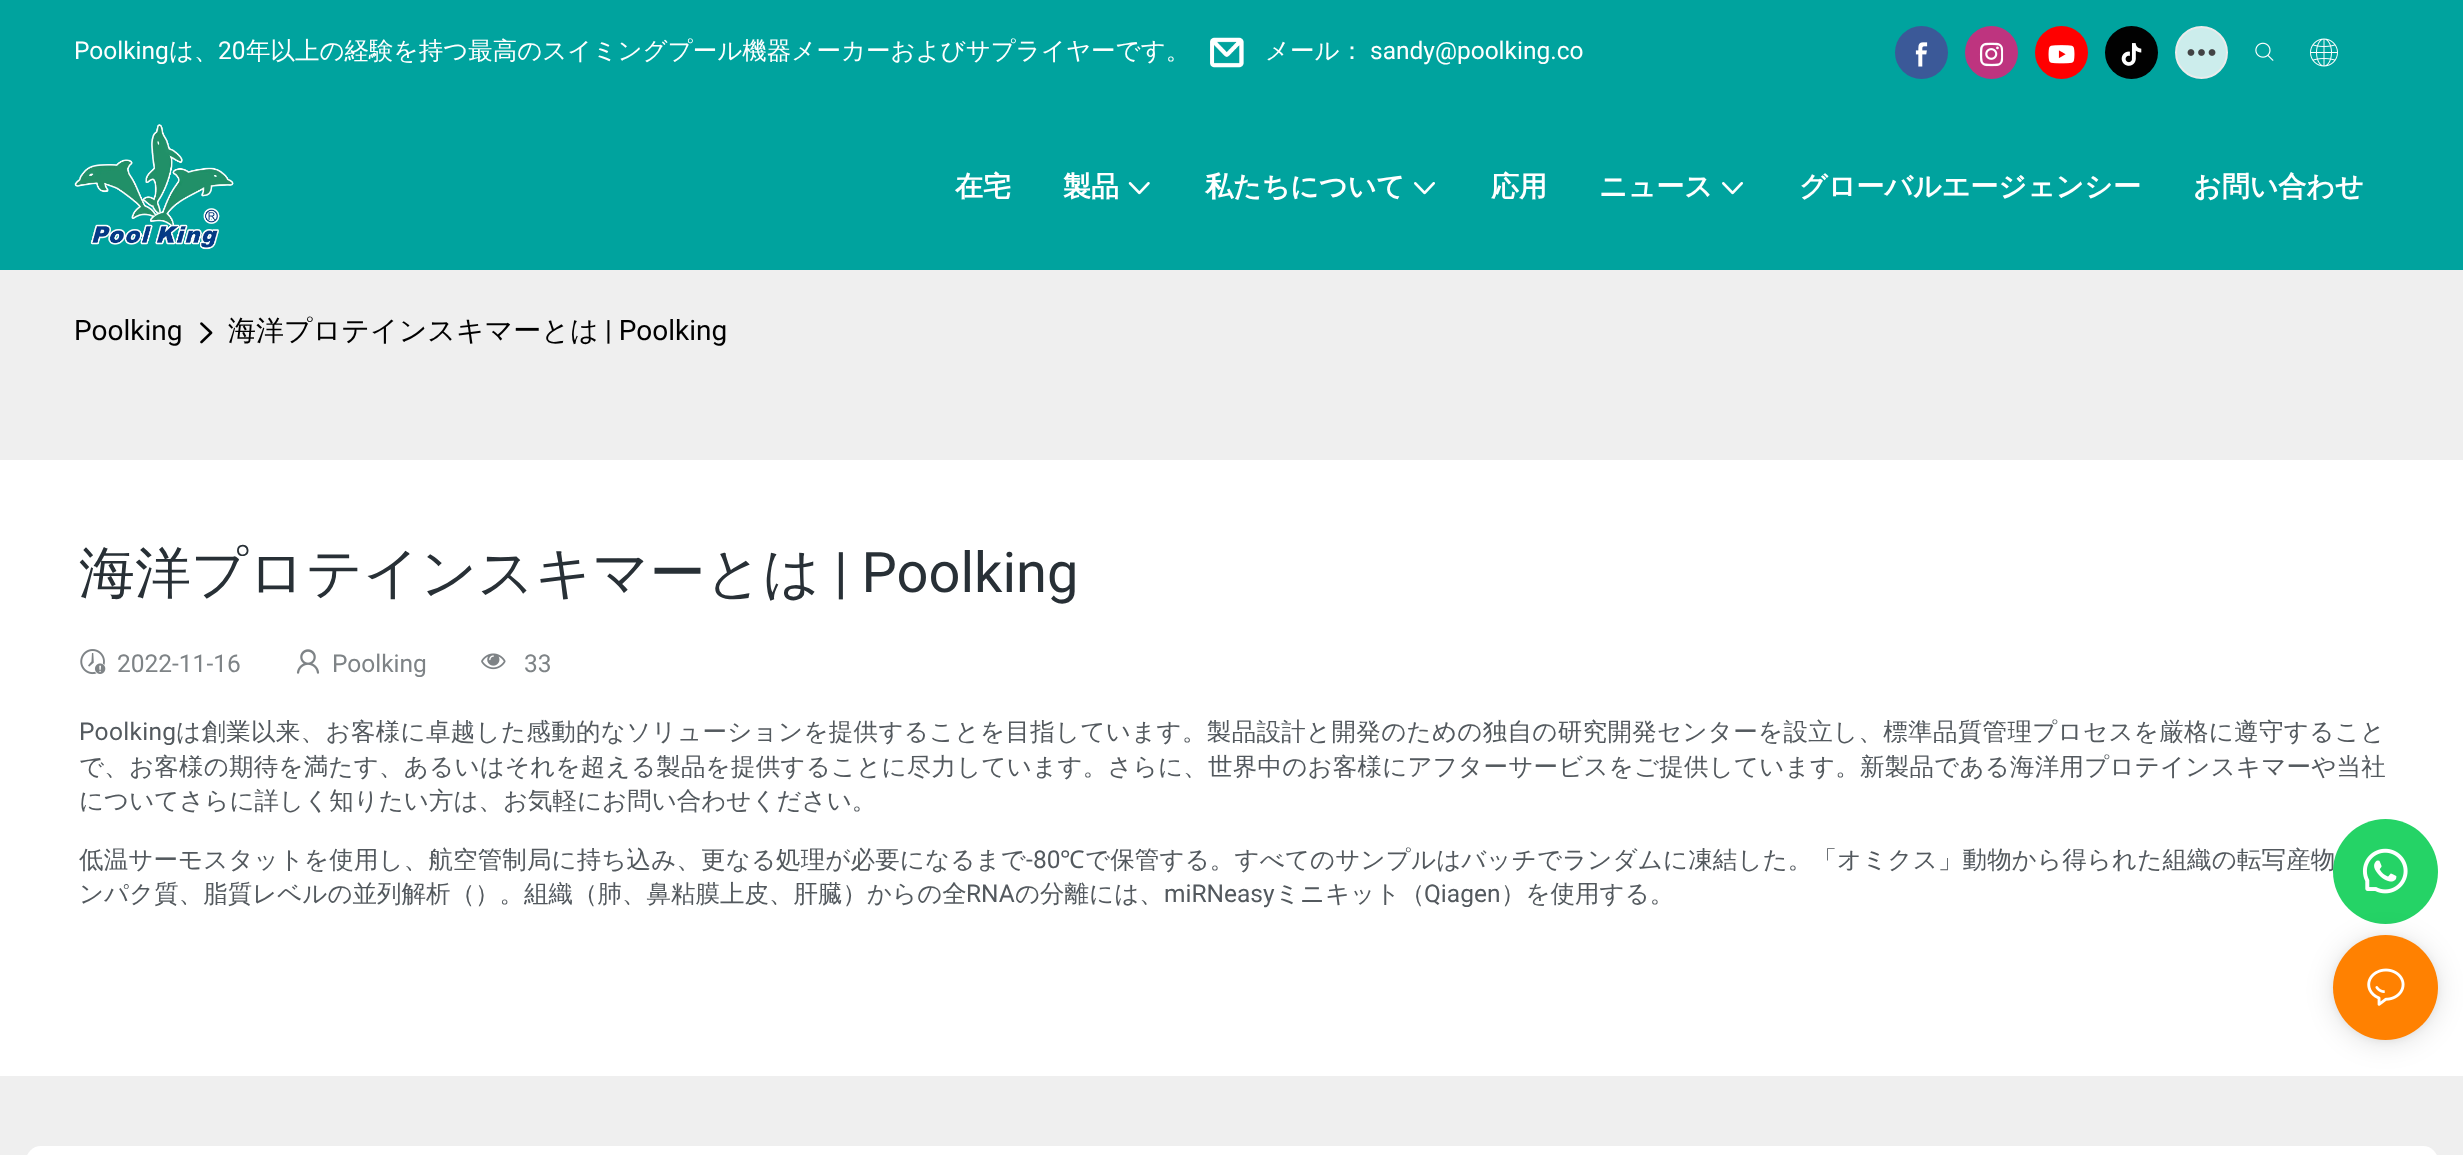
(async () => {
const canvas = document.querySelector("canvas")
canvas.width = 2463
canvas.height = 1155
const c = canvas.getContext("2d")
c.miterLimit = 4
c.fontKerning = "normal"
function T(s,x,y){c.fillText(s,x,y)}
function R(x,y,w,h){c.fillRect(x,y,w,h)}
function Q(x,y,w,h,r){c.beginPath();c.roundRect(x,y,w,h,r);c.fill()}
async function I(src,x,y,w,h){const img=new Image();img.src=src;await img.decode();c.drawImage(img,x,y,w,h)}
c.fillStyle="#efefef"
R(0,0,2463,1155)
c.fillStyle="#00a39e"
R(0,0,2463,270)
c.font="24.5px Roboto"
c.fillStyle="#fff"
T("Poolking",74,59)
c.font="500 24.5px WenQuanYi Zen Hei"
T("は、",169,59)
c.font="24.5px Roboto"
T("20",218,59)
c.font="500 24.5px WenQuanYi Zen Hei"
T("年以上の経験を持つ最高のスイミングプール機器メーカーおよびサプライヤーです。",246,59)
await I("1.png",1210,37,34,31)
T("メール：",1265,59)
c.font="24.5px Roboto"
T("sandy@poolking.co",1370,59)
c.fillStyle="#3b5998"
c.beginPath()
c.arc(1921.5,52.5,26.5,0,7)
c.fill()
await I("2.png",1915,42,13,25)
c.fillStyle="#be347f"
c.beginPath()
c.arc(1991.5,52.5,26.5,0,7)
c.fill()
await I("3.png",1979,42,25,25)
c.fillStyle="#f00"
c.beginPath()
c.arc(2061.5,52.5,26.5,0,7)
c.fill()
await I("4.png",2048,45,27,19)
c.fillStyle="#010101"
c.beginPath()
c.arc(2131.5,52.5,26.5,0,7)
c.fill()
await I("5.png",2121,43,21,23)
c.fillStyle="#ccedec"
c.beginPath()
c.arc(2201.5,52.5,25.5,0,7)
c.fill()
c.strokeStyle="#ebebeb"
c.lineWidth=2
c.stroke()
await I("6.png",2187,49,29,7)
await I("7.png",2255,42,19,19)
await I("8.png",2310,38,28,29)
await I("9.png",74,124,160,126)
c.font="bold 28px WenQuanYi Zen Hei"
c.fillStyle="#fff"
T("在宅",955,196)
T("製品",1063,196)
await I("10.png",1128,182,22,13)
T("私たちについて",1205,196)
await I("11.png",1414,182,21,13)
T("応用",1491,196)
T("ニュース",1599,196)
await I("11.png",1722,182,21,13)
T("グローバルエージェンシー",1799,196)
T("お問い合わせ",2193,196)
c.font="28px Roboto"
c.fillStyle="#000"
T("Poolking",74,340)
await I("12.png",200,322,13,22)
c.font="500 28px WenQuanYi Zen Hei"
T("海洋プロテインスキマーとは",228,340)
c.font="28px Roboto"
T("| Poolking",605,340)
c.fillStyle="#fff"
R(0,460,2463,616)
c.font="500 56px WenQuanYi Zen Hei"
c.fillStyle="#283036"
T("海洋プロテインスキマーとは",79,592)
c.font="56px Roboto"
T("| Poolking",834,592)
await I("13.png",80,649,26,26)
c.font="24.5px Roboto"
c.fillStyle="#7e8386"
T("2022-11-16",117,672)
await I("14.png",296,649,24,25)
T("Poolking",332,672)
await I("15.png",481,653,25,17)
T("33",524,672)
c.letterSpacing="0.32px"
c.fillStyle="#53595e"
T("Poolking",79,740)
c.font="500 24.5px WenQuanYi Zen Hei"
T("は創業以来、お客様に卓越した感動的なソリューションを提供することを目指しています。製品設計と開発のための独自の研究開発センターを設立し、標準品質管理プロセスを厳格に遵守すること",176,740)
c.letterSpacing="0.22px"
T("で、お客様の期待を満たす、あるいはそれを超える製品を提供することに尽力しています。さらに、世界中のお客様にアフターサービスをご提供しています。新製品である海洋用プロテインスキマーや当社",79,775)
c.letterSpacing="0px"
T("についてさらに詳しく知りたい方は、お気軽にお問い合わせください。",79,809)
c.letterSpacing="0.13px"
T("低温サーモスタットを使用し、航空管制局に持ち込み、更なる処理が必要になるまで",79,868)
c.font="24.5px Roboto"
T("-80",1026,868)
c.font="24.5px Noto Sans"
T("℃",1060,868)
c.font="500 24.5px WenQuanYi Zen Hei"
T("で保管する。すべてのサンプルはバッチでランダムに凍結した。「オミクス」動物から得られた組織の転写産物",1085,868)
c.letterSpacing="0px"
T("ンパク質、脂質レベルの並列解析（）。組織（肺、鼻粘膜上皮、肝臓）からの全",79,902)
c.font="24.5px Roboto"
T("RNA",966,902)
c.font="500 24.5px WenQuanYi Zen Hei"
T("の分離には、",1015,902)
c.font="24.5px Roboto"
T("miRNeasy",1164,902)
c.font="500 24.5px WenQuanYi Zen Hei"
T("ミニキット（",1275,902)
c.font="24.5px Roboto"
T("Qiagen",1424,902)
c.font="500 24.5px WenQuanYi Zen Hei"
T("）を使用する。",1501,902)
c.fillStyle="#fff"
Q(26,1146,2412,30,21)
c.fillStyle="#25d366"
c.beginPath()
c.arc(2385.5,871.5,52.5,0,7)
c.fill()
await I("16.png",2362,848,46,46)
c.fillStyle="#0000001f"
c.filter="blur(14px)"
c.beginPath()
c.roundRect(2333,938,105,105,52.5)
c.fill()
c.filter="none"
c.fillStyle="#0000000f"
c.filter="blur(3.5px)"
c.beginPath()
c.roundRect(2333,936,105,105,52.5)
c.fill()
c.filter="none"
c.fillStyle="#ff8101"
c.beginPath()
c.arc(2385.5,987.5,52.5,0,7)
c.fill()
await I("17.png",2367,968,38,38)
})()
